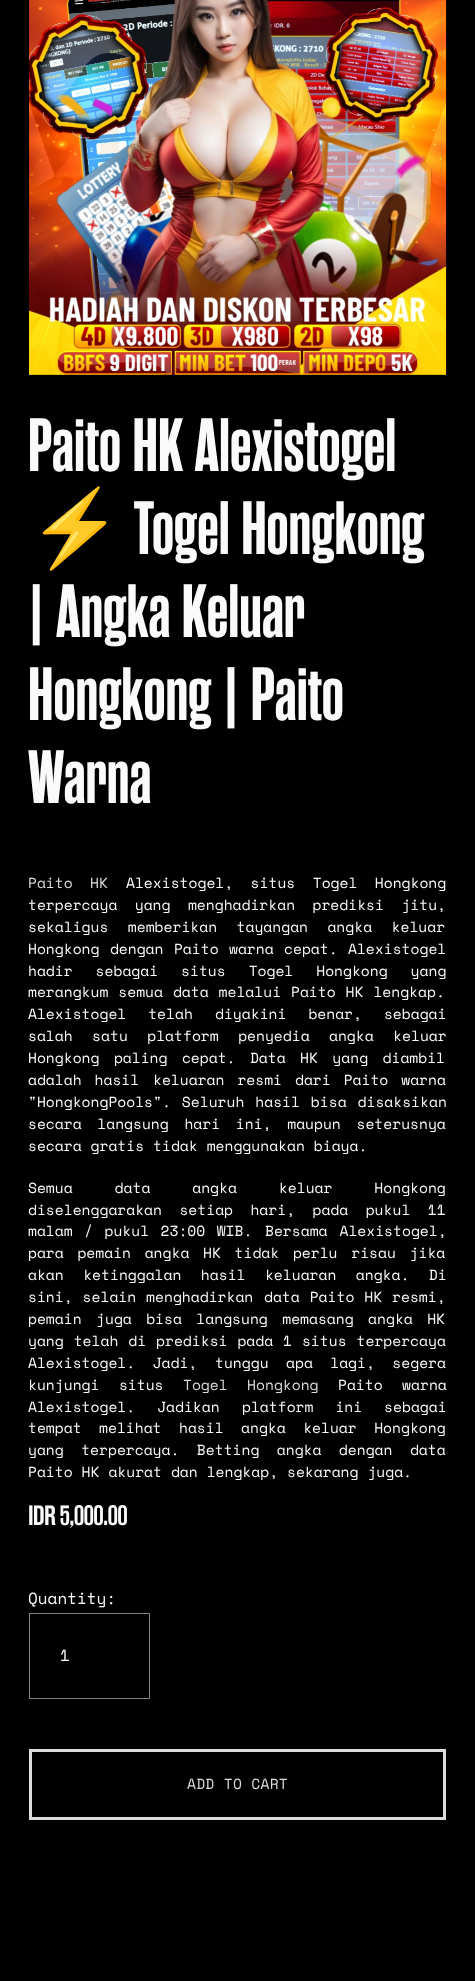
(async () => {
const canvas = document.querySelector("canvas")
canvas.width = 475
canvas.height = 1981
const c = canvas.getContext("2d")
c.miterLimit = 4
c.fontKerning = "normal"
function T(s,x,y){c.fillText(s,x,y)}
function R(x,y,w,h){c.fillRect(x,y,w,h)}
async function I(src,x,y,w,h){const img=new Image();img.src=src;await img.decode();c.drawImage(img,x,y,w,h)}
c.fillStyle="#000"
R(0,0,475,1981)
await I("1.png",29,0,418,375)
c.font="bold 75.5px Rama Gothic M"
c.fillStyle="#fafafa"
T("Paito HK Alexistogel",28,471)
c.font="bold 75.5px Noto Color Emoji"
T("⚡️",28,554)
c.font="bold 75.5px Rama Gothic M"
T("Togel Hongkong",134,554)
T("| Angka Keluar",28,637)
T("Hongkong | Paito",28,720)
T("Warna",28,803)
c.wordSpacing="8.5px"
c.font="14.6px Space Mono"
c.fillStyle="#dcdcdc"
T("Paito HK",28,888)
c.fillStyle="#fafafa"
T("Alexistogel, situs Togel Hongkong",126,888)
T("terpercaya yang menghadirkan prediksi jitu,",28,910)
c.wordSpacing="10.5px"
T("sekaligus memberikan tayangan angka keluar",28,932)
c.wordSpacing="1.5px"
T("Hongkong dengan Paito warna cepat.",28,954)
c.wordSpacing="0px"
T("Alexistogel",348,954)
c.wordSpacing="14px"
T("hadir sebagai situs Togel Hongkong yang",28,976)
c.wordSpacing="1px"
T("merangkum semua data melalui Paito HK lengkap.",28,997)
c.wordSpacing="13px"
T("Alexistogel telah",28,1019)
T("diyakini benar, sebagai",215,1019)
c.wordSpacing="10.5px"
T("salah satu platform penyedia angka keluar",28,1041)
c.wordSpacing="5.5px"
T("Hongkong paling cepat. Data HK yang diambil",28,1063)
c.wordSpacing="4px"
T("adalah hasil",28,1085)
T("keluaran resmi dari Paito warna",153,1085)
c.wordSpacing="2px"
T("\"HongkongPools\". Seluruh hasil bisa disaksikan",28,1107)
c.wordSpacing="6.75px"
T("secara langsung hari ini, maupun seterusnya",28,1129)
c.wordSpacing="0px"
T("secara gratis tidak menggunakan biaya.",28,1151)
c.wordSpacing="33px"
T("Semua data angka keluar Hongkong",28,1193)
c.wordSpacing="8.5px"
T("diselenggarakan setiap hari, pada pukul 11",28,1215)
c.wordSpacing="2.5px"
T("malam / pukul 23:00 WIB.",28,1236)
c.wordSpacing="3px"
T("Bersama Alexistogel,",265,1236)
c.wordSpacing="4.75px"
T("para pemain angka HK tidak perlu risau jika",28,1258)
c.wordSpacing="10.5px"
T("akan ketinggalan hasil keluaran angka. Di",28,1280)
c.wordSpacing="1px"
T("sini, selain menghadirkan",28,1302)
T("data Paito HK resmi,",264,1302)
c.wordSpacing="5.5px"
T("pemain juga bisa langsung memasang angka HK",28,1324)
c.wordSpacing="1px"
T("yang telah di prediksi pada 1 situs terpercaya",28,1346)
c.wordSpacing="8.5px"
T("Alexistogel. Jadi,",28,1368)
T("tunggu apa lagi, segera",215,1368)
c.wordSpacing="10.5px"
T("kunjungi situs",28,1390)
c.fillStyle="#dcdcdc"
T("Togel Hongkong",183,1390)
c.fillStyle="#fafafa"
T("Paito warna",338,1390)
c.wordSpacing="13px"
T("Alexistogel. Jadikan",28,1412)
T("platform ini sebagai",242,1412)
c.wordSpacing="8.5px"
T("tempat melihat hasil angka keluar Hongkong",28,1433)
T("yang terpercaya. Betting angka dengan data",28,1455)
c.wordSpacing="0px"
T("Paito HK akurat dan lengkap, sekarang juga.",28,1477)
c.letterSpacing="-0.8px"
c.font="600 28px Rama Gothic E"
T("IDR 5,000.00",28,1525)
c.letterSpacing="0px"
c.font="16px Space Mono"
T("Quantity:",28,1604)
c.strokeStyle="#808080"
c.strokeRect(29.5,1613.5,120,85)
T("1",60,1661)
c.strokeStyle="#dcdcdc"
c.lineWidth=3
c.strokeRect(30.5,1750.5,414,68)
c.letterSpacing="0.25px"
c.font="14.6px Space Mono"
c.fillStyle="#dcdcdc"
T("ADD TO CART",187,1789)
})()
